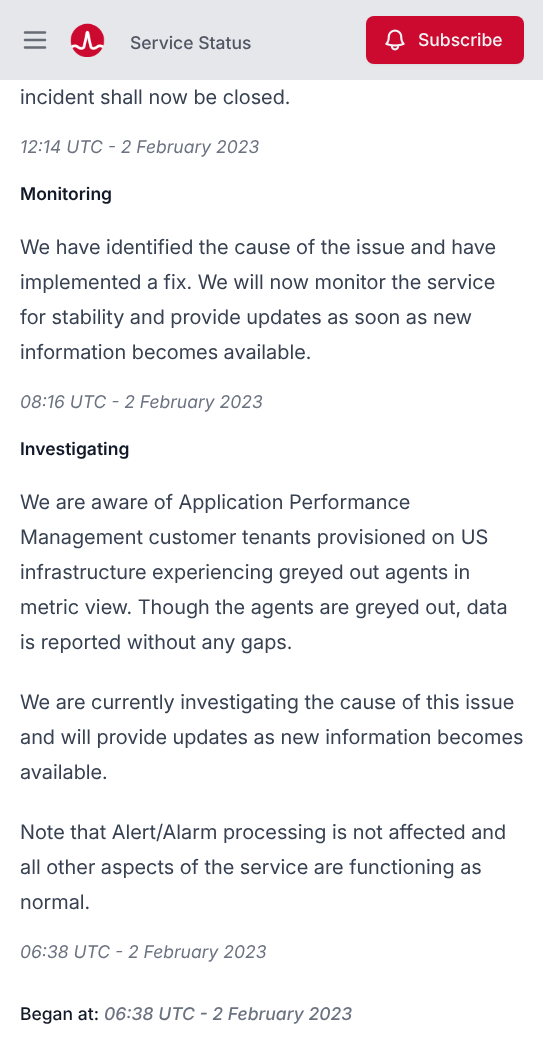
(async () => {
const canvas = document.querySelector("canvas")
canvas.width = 543
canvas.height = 1043
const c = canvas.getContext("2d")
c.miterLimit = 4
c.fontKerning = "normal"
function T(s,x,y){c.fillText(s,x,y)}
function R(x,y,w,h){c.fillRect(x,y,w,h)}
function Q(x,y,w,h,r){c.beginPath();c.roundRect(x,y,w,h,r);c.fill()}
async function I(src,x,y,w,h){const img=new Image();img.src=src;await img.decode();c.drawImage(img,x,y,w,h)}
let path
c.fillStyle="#fff"
R(0,0,543,1043)
c.fillStyle="#e5e7eb"
R(0,0,543,80)
path = new Path2D("M25 32.5h20m-20 7.5h20m-20 7.5h20")
c.strokeStyle="#666b75"
c.lineWidth=2.5
c.lineCap="round"
c.lineJoin="round"
c.stroke(path)
await I("1.png",70,23,35,34)
c.font="500 17.5px Inter"
c.fillStyle="#515662"
T("Service Status",130,49)
c.fillStyle="#0000000d"
c.filter="blur(1px)"
c.beginPath()
c.roundRect(366,18,158,47,8)
c.fill()
c.filter="none"
c.fillStyle="#cc092f"
Q(366,16,158,48,8)
await I("2.png",385,29,20,22)
c.fillStyle="#f3f4f6"
T("Subscribe",418,46)
c.font="20px Inter"
c.fillStyle="#374151"
T("incident shall now be closed.",20,104)
c.font="italic 17.5px Inter"
c.fillStyle="#6b7280"
T("12:14 UTC - 2 February 2023",20,153)
c.font="600 17.5px Inter"
c.fillStyle="#111827"
T("Monitoring",20,200)
c.font="20px Inter"
c.fillStyle="#374151"
T("We have identified the cause of the issue and have",20,254)
T("implemented a fix. We will now monitor the service",20,289)
T("for stability and provide updates as soon as new",20,324)
T("information becomes available.",20,359)
c.font="italic 17.5px Inter"
c.fillStyle="#6b7280"
T("08:16 UTC - 2 February 2023",20,408)
c.font="600 17.5px Inter"
c.fillStyle="#111827"
T("Investigating",20,455)
c.font="20px Inter"
c.fillStyle="#374151"
T("We are aware of Application Performance",20,509)
T("Management customer tenants provisioned on US",20,544)
T("infrastructure experiencing greyed out agents in",20,579)
T("metric view. Though the agents are greyed out, data",20,614)
T("is reported without any gaps.",20,649)
T("We are currently investigating the cause of this issue",20,709)
T("and will provide updates as new information becomes",20,744)
T("available.",20,779)
T("Note that Alert/Alarm processing is not affected and",20,839)
T("all other aspects of the service are functioning as",20,874)
T("normal.",20,909)
c.font="italic 17.5px Inter"
c.fillStyle="#6b7280"
T("06:38 UTC - 2 February 2023",20,958)
c.font="500 17.5px Inter"
c.fillStyle="#111827"
T("Began at:",20,1020)
c.font="italic 500 17.5px Inter"
c.fillStyle="#6b7280"
T("06:38 UTC - 2 February 2023",104,1020)
})()
